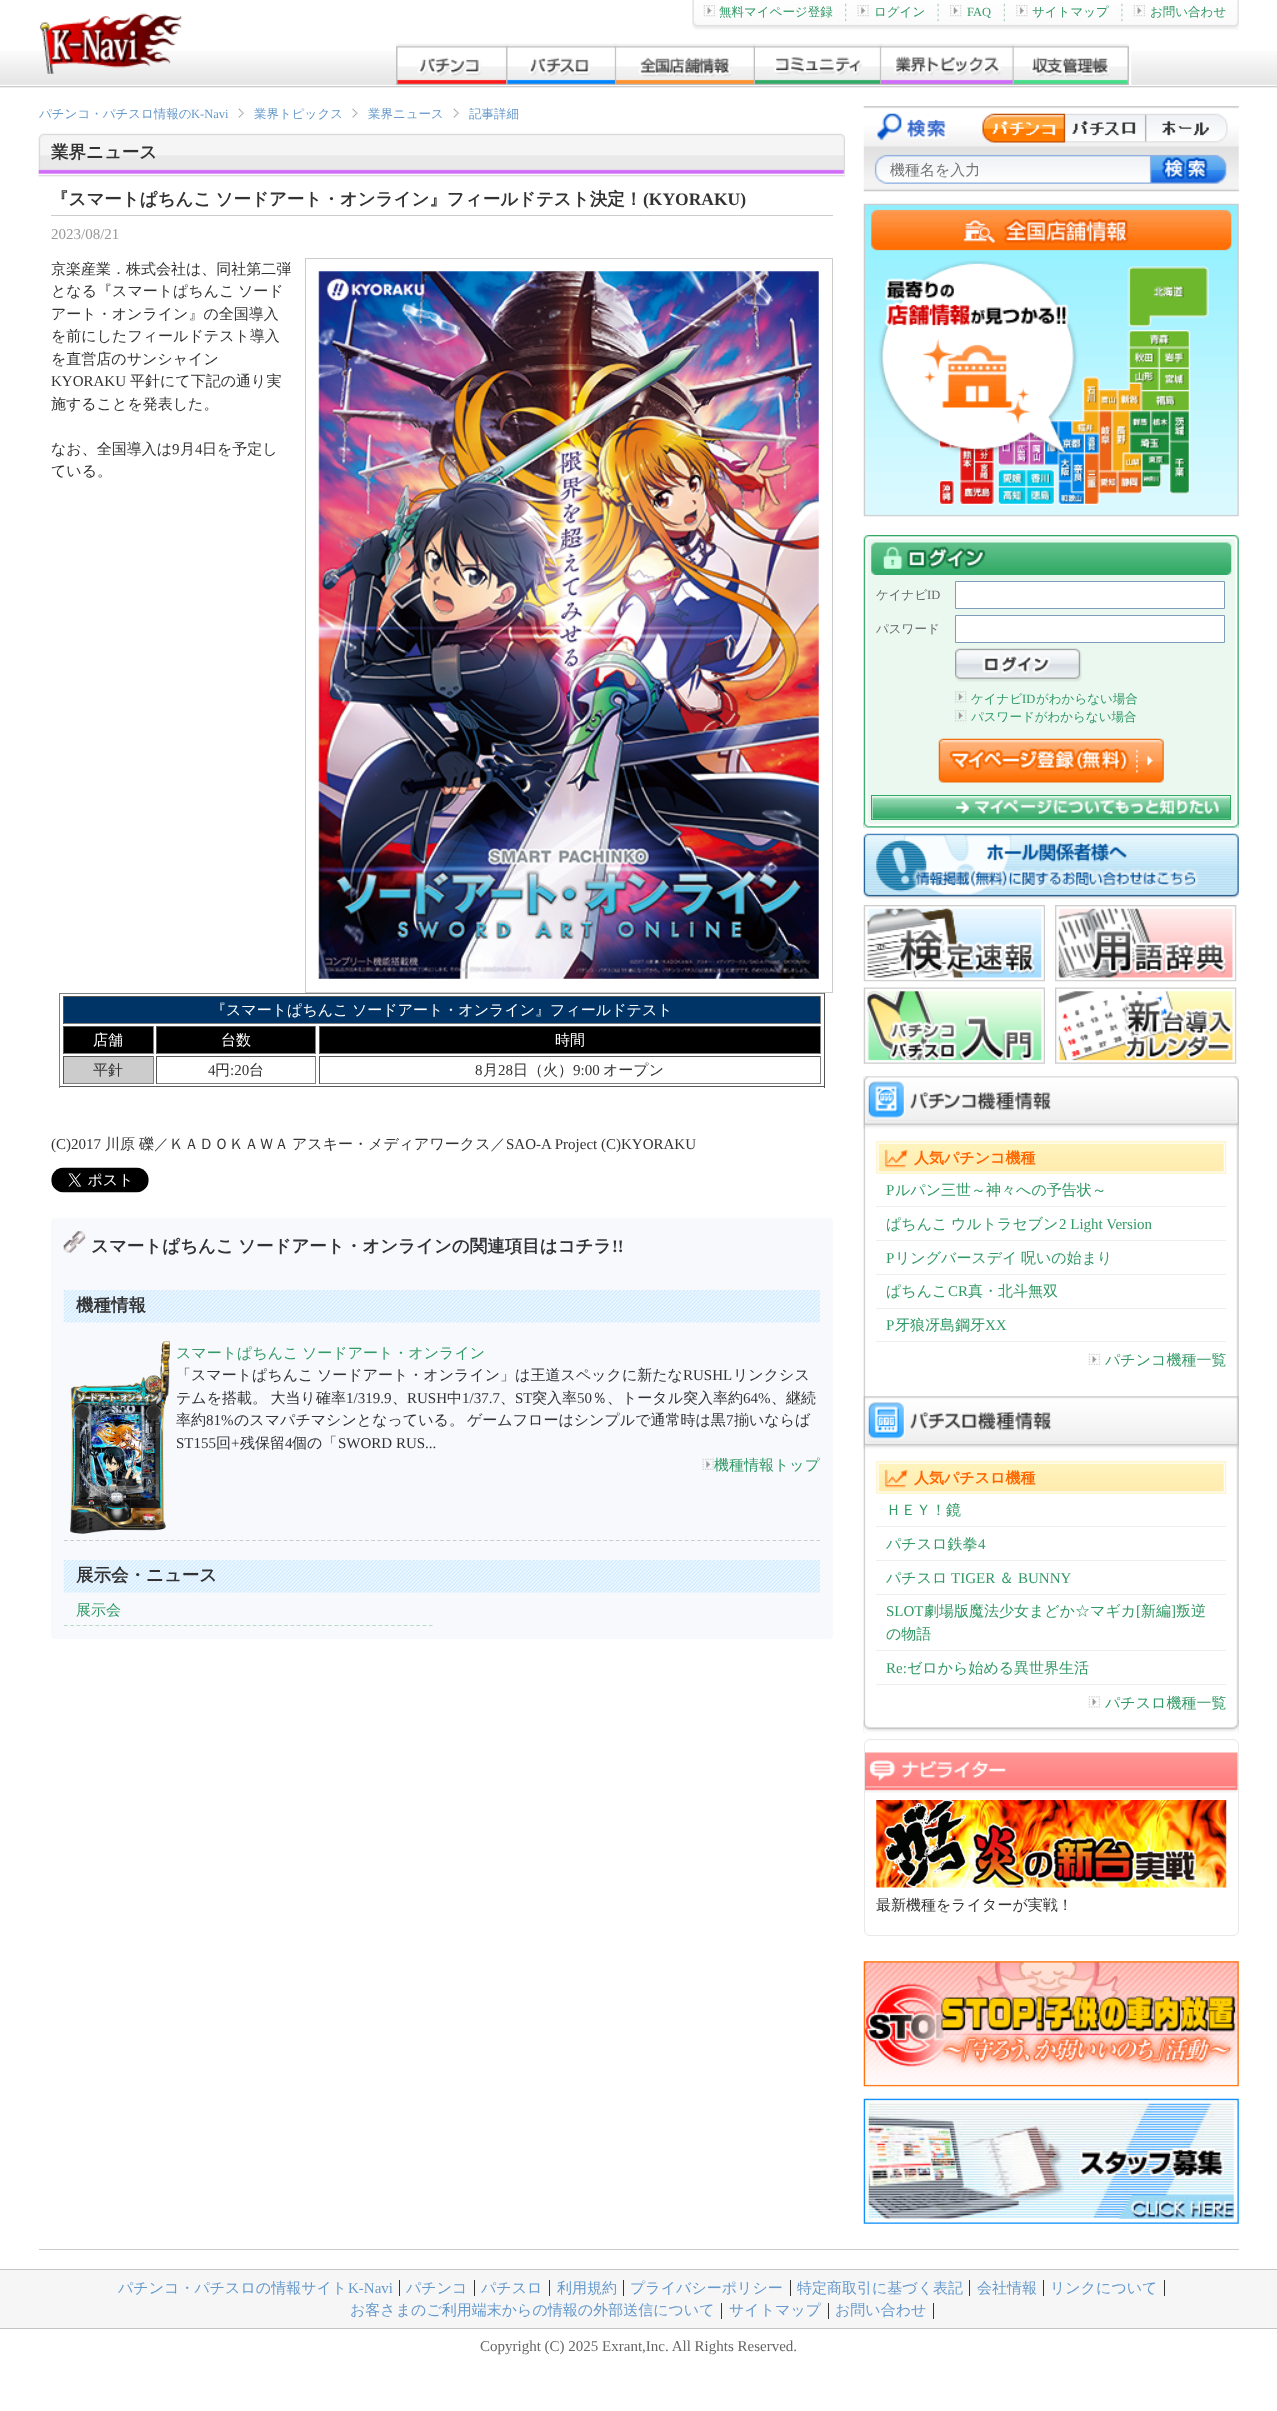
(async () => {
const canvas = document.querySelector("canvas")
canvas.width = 1277
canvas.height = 2411
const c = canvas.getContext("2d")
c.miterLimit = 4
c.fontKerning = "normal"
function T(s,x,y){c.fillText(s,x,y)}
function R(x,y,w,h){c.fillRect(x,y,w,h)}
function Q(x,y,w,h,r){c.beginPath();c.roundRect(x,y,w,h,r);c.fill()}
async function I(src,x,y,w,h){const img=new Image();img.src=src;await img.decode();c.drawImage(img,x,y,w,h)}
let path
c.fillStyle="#fff"
R(0,0,1277,2411)
await I("1.png",0,51,1277,37)
await I("2.png",692,0,547,30)
await I("3.png",703,5,12,12)
c.font="500 12.5px WenQuanYi Zen Hei"
c.fillStyle="#396"
T("無料マイページ登録",719,16)
await I("4.png",845,3,2,19)
await I("5.png",857,5,12,12)
T("ログイン",874,16)
await I("6.png",937,3,2,19)
await I("7.png",950,5,12,12)
c.font="12.5px Liberation Serif"
T("FAQ",967,16)
await I("8.png",1003,3,2,19)
await I("9.png",1016,5,12,12)
c.font="500 12.5px WenQuanYi Zen Hei"
T("サイトマップ",1032,16)
await I("10.png",1121,3,2,19)
await I("3.png",1133,5,12,12)
T("お問い合わせ",1150,16)
await I("11.png",1235,0,4,29)
await I("12.png",39,13,143,61)
await I("13.png",396,43,736,42)
await I("14.png",396,46,111,39)
await I("15.png",506,47,111,37)
await I("16.png",616,47,139,37)
await I("17.png",755,47,127,37)
await I("18.png",881,47,133,37)
await I("19.png",1013,46,116,39)
c.fillStyle="#ccc"
R(39,2249,1200,1)
await I("20.png",238,108,6,10)
c.fillStyle="#69c"
T("パチンコ・パチスロ情報の",39,118)
c.font="12.5px Liberation Serif"
T("K-Navi",191,118)
await I("21.png",352,108,6,10)
c.font="500 12.5px WenQuanYi Zen Hei"
T("業界トピックス",254,118)
await I("22.png",453,108,6,10)
T("業界ニュース",368,118)
T("記事詳細",469,118)
await I("23.png",38,133,807,44)
await I("24.png",38,169,807,8)
c.font="bold 17.5px WenQuanYi Zen Hei"
c.fillStyle="#333"
T("業界ニュース",51,158)
c.fillStyle="#ccc"
R(51,215,782,1)
c.wordSpacing="-1px"
c.fillStyle="#333"
T("『スマートぱちんこ ソードアート・オンライン』フィールドテスト決定！",51,205)
c.wordSpacing="0px"
c.font="bold 17.5px Liberation Serif"
T("(KYORAKU)",643,205)
c.font="15px Liberation Serif"
c.fillStyle="#999"
T("2023/08/21",51,239)
c.font="500 15px WenQuanYi Zen Hei"
c.fillStyle="#333"
T("京楽産業．株式会社は、同社第二弾",51,274)
c.strokeStyle="#ccc"
c.strokeRect(305.5,258.5,527,734)
await I("25.png",318,271,501,708)
c.wordSpacing="-1px"
T("となる『スマートぱちんこ ソード",51,296)
c.wordSpacing="0px"
T("アート・オンライン』の全国導入",51,319)
T("を前にしたフィールドテスト導入",51,341)
T("を直営店のサンシャイン",51,364)
c.font="15px Liberation Serif"
T("KYORAKU",51,386)
c.font="500 15px WenQuanYi Zen Hei"
T("平針にて下記の通り実",130,386)
T("施することを発表した。",51,409)
T("なお、全国導入は",51,454)
c.font="15px Liberation Serif"
T("9",172,454)
c.font="500 15px WenQuanYi Zen Hei"
T("月",180,454)
c.font="15px Liberation Serif"
T("4",195,454)
c.font="500 15px WenQuanYi Zen Hei"
T("日を予定し",202,454)
T("ている。",51,476)
c.fillStyle="#808080"
R(59,993,766,1)
c.fillStyle="#555"
R(824,993,1,95)
R(59,1086,766,1)
c.fillStyle="#808080"
R(59,993,1,95)
c.fillStyle="#036"
R(64,997,756,26)
c.fillStyle="#555"
R(63,996,758,1)
c.fillStyle="#808080"
R(820,996,1,28)
R(63,1023,758,1)
c.fillStyle="#555"
R(63,996,1,28)
c.wordSpacing="-1px"
c.fillStyle="#fff"
T("『スマートぱちんこ ソードアート・オンライン』フィールドテスト",211,1015)
c.fillStyle="#000"
R(64,1027,89,26)
c.fillStyle="#555"
R(63,1026,91,1)
c.fillStyle="#808080"
R(153,1026,1,28)
R(63,1053,91,1)
c.fillStyle="#555"
R(63,1026,1,28)
c.wordSpacing="0px"
c.fillStyle="#fff"
T("店舗",93,1045)
c.fillStyle="#000"
R(157,1027,158,26)
c.fillStyle="#555"
R(156,1026,160,1)
c.fillStyle="#808080"
R(315,1026,1,28)
R(156,1053,160,1)
c.fillStyle="#555"
R(156,1026,1,28)
c.fillStyle="#fff"
T("台数",221,1045)
c.fillStyle="#000"
R(320,1027,500,26)
c.fillStyle="#555"
R(319,1026,502,1)
c.fillStyle="#808080"
R(820,1026,1,28)
R(319,1053,502,1)
c.fillStyle="#555"
R(319,1026,1,28)
c.fillStyle="#fff"
T("時間",555,1045)
c.fillStyle="#ccc"
R(64,1057,89,26)
c.fillStyle="#555"
R(63,1056,91,1)
c.fillStyle="#808080"
R(153,1056,1,28)
R(63,1083,91,1)
c.fillStyle="#555"
R(63,1056,1,28)
c.fillStyle="#333"
T("平針",93,1075)
c.fillStyle="#555"
R(156,1056,160,1)
c.fillStyle="#808080"
R(315,1056,1,28)
R(156,1083,160,1)
c.fillStyle="#555"
R(156,1056,1,28)
c.font="15px Liberation Serif"
c.fillStyle="#333"
T("4",208,1075)
c.font="500 15px WenQuanYi Zen Hei"
T("円",215,1075)
c.font="15px Liberation Serif"
T(":20",230,1075)
c.font="500 15px WenQuanYi Zen Hei"
T("台",249,1075)
c.fillStyle="#555"
R(319,1056,502,1)
c.fillStyle="#808080"
R(820,1056,1,28)
R(319,1083,502,1)
c.fillStyle="#555"
R(319,1056,1,28)
c.font="15px Liberation Serif"
c.fillStyle="#333"
T("8",475,1075)
c.font="500 15px WenQuanYi Zen Hei"
T("月",483,1075)
c.font="15px Liberation Serif"
T("28",498,1075)
c.font="500 15px WenQuanYi Zen Hei"
T("日（火）",513,1075)
c.font="15px Liberation Serif"
T("9:00",573,1075)
c.font="500 15px WenQuanYi Zen Hei"
T("オープン",603,1075)
c.font="15px Liberation Serif"
T("(C)2017",51,1149)
c.font="500 15px WenQuanYi Zen Hei"
T("川原",105,1149)
T("礫／ＫＡＤＯＫＡＷＡ",139,1149)
T("アスキー・メディアワークス／",292,1149)
c.font="15px Liberation Serif"
T("SAO-A Project (C)KYORAKU",506,1149)
await I("26.png",51,1167,98,26)
c.fillStyle="#f7f9fd"
Q(51,1218,782,421,4)
await I("27.png",63,1231,23,22)
c.wordSpacing="-1px"
c.font="bold 17.5px WenQuanYi Zen Hei"
c.fillStyle="#333"
T("スマートぱちんこ ソードアート・オンラインの関連項目はコチラ",91,1252)
c.wordSpacing="0px"
c.font="bold 17.5px Liberation Serif"
T("!!",612,1252)
await I("28.png",63,1290,757,33)
c.font="bold 17.5px WenQuanYi Zen Hei"
T("機種情報",76,1311)
path = new Path2D("M64 1540.5h756")
c.lineWidth=1.2
c.setLineDash([3.75,2.52])
c.stroke(path)
await I("29.png",70,1341,100,193)
c.wordSpacing="-1px"
c.font="500 15px WenQuanYi Zen Hei"
c.fillStyle="#396"
T("スマートぱちんこ ソードアート・オンライン",176,1358)
c.fillStyle="#333"
T("「スマートぱちんこ ソードアート・オンライン」は王道スペックに新たな",176,1380)
c.wordSpacing="0px"
c.font="15px Liberation Serif"
T("RUSHL",683,1380)
c.font="500 15px WenQuanYi Zen Hei"
T("リンクシス",733,1380)
c.wordSpacing="-1px"
T("テムを搭載。 大当り確率",176,1403)
c.wordSpacing="0px"
c.font="15px Liberation Serif"
T("1/319.9",346,1403)
c.font="500 15px WenQuanYi Zen Hei"
T("、",392,1403)
c.font="15px Liberation Serif"
T("RUSH",407,1403)
c.font="500 15px WenQuanYi Zen Hei"
T("中",447,1403)
c.font="15px Liberation Serif"
T("1/37.7",462,1403)
c.font="500 15px WenQuanYi Zen Hei"
T("、",500,1403)
c.font="15px Liberation Serif"
T("ST",515,1403)
c.font="500 15px WenQuanYi Zen Hei"
T("突入率",532,1403)
c.font="15px Liberation Serif"
T("50",577,1403)
c.font="500 15px WenQuanYi Zen Hei"
T("％、トータル突入率約",592,1403)
c.font="15px Liberation Serif"
T("64%",743,1403)
c.font="500 15px WenQuanYi Zen Hei"
T("、継続",771,1403)
T("率約",176,1425)
c.font="15px Liberation Serif"
T("81%",206,1425)
c.font="500 15px WenQuanYi Zen Hei"
T("のスマパチマシンとなっている。",234,1425)
T("ゲームフローはシンプルで通常時は黒",467,1425)
c.font="15px Liberation Serif"
T("7",726,1425)
c.font="500 15px WenQuanYi Zen Hei"
T("揃いならば",734,1425)
c.font="15px Liberation Serif"
T("ST155",176,1448)
c.font="500 15px WenQuanYi Zen Hei"
T("回",216,1448)
c.font="15px Liberation Serif"
T("+",231,1448)
c.font="500 15px WenQuanYi Zen Hei"
T("残保留",240,1448)
c.font="15px Liberation Serif"
T("4",285,1448)
c.font="500 15px WenQuanYi Zen Hei"
T("個の「",292,1448)
c.font="15px Liberation Serif"
T("SWORD RUS...",338,1448)
await I("30.png",702,1458,12,12)
c.font="500 15px WenQuanYi Zen Hei"
c.fillStyle="#396"
T("機種情報トップ",714,1470)
await I("28.png",63,1560,757,33)
c.font="bold 17.5px WenQuanYi Zen Hei"
c.fillStyle="#333"
T("展示会・ニュース",76,1581)
path = new Path2D("M64 1625.5h368.5")
c.strokeStyle="#b9d9c9"
c.setLineDash([3.75,2.54])
c.stroke(path)
c.font="500 15px WenQuanYi Zen Hei"
c.fillStyle="#396"
T("展示会",76,1615)
await I("31.png",863,106,376,86)
await I("32.png",982,113,246,30)
c.fillStyle="#757575"
T("機種名を入力",890,175)
await I("33.png",863,203,376,314)
c.fillStyle="#eaf8f0"
R(864,535,375,293)
await I("34.png",863,535,376,293)
await I("35.png",871,542,361,33)
c.font="500 12.5px WenQuanYi Zen Hei"
c.fillStyle="#666"
T("ケイナビ",876,599)
c.font="12.5px Liberation Serif"
T("ID",927,599)
c.fillStyle="#fff"
c.beginPath()
c.rect(955.5,581.5,269,27)
c.fill()
c.strokeStyle="#7f9db9"
c.lineWidth=1
c.setLineDash([])
c.stroke()
c.font="500 12.5px WenQuanYi Zen Hei"
c.fillStyle="#666"
T("パスワード",876,633)
c.fillStyle="#fff"
c.beginPath()
c.rect(955.5,615.5,269,27)
c.fill()
c.stroke()
await I("36.png",955,648,127,34)
await I("37.png",955,691,12,12)
c.fillStyle="#396"
T("ケイナビ",971,703)
c.font="12.5px Liberation Serif"
T("ID",1022,703)
c.font="500 12.5px WenQuanYi Zen Hei"
T("がわからない場合",1036,703)
await I("38.png",955,710,12,12)
T("パスワードがわからない場合",971,721)
await I("39.png",938,738,226,45)
c.strokeStyle="#31aa66"
c.strokeRect(871.5,795.5,359,24)
await I("40.png",872,796,358,23)
await I("41.png",863,822,376,6)
await I("42.png",863,833,376,66)
await I("43.png",863,905,182,77)
await I("44.png",1055,905,182,77)
await I("45.png",863,987,182,77)
await I("46.png",1055,987,182,77)
await I("47.png",863,1076,376,657)
await I("48.png",863,1720,376,13)
await I("49.png",863,1076,376,53)
await I("50.png",876,1141,351,33)
c.font="bold 15px WenQuanYi Zen Hei"
c.fillStyle="#f60"
T("人気パチンコ機種",914,1163)
c.fillStyle="#eee"
R(876,1206,350,1)
c.font="15px Liberation Serif"
c.fillStyle="#396"
T("P",886,1195)
c.font="500 15px WenQuanYi Zen Hei"
T("ルパン三世～神々への予告状～",895,1195)
c.fillStyle="#eee"
R(876,1240,350,1)
c.fillStyle="#396"
T("ぱちんこ",886,1229)
T("ウルトラセブン",951,1229)
c.font="15px Liberation Serif"
T("2 Light Version",1059,1229)
c.fillStyle="#eee"
R(876,1274,350,1)
c.fillStyle="#396"
T("P",886,1263)
c.wordSpacing="-1px"
c.font="500 15px WenQuanYi Zen Hei"
T("リングバースデイ 呪いの始まり",895,1263)
c.fillStyle="#eee"
R(876,1308,350,1)
c.wordSpacing="0px"
c.fillStyle="#396"
T("ぱちんこ",886,1296)
c.font="15px Liberation Serif"
T("CR",948,1296)
c.font="500 15px WenQuanYi Zen Hei"
T("真・北斗無双",968,1296)
c.fillStyle="#eee"
R(876,1341,350,1)
c.font="15px Liberation Serif"
c.fillStyle="#396"
T("P",886,1330)
c.font="500 15px WenQuanYi Zen Hei"
T("牙狼冴島鋼牙",895,1330)
c.font="15px Liberation Serif"
T("XX",985,1330)
await I("51.png",1088,1353,12,12)
c.font="500 15px WenQuanYi Zen Hei"
T("パチンコ機種一覧",1105,1365)
await I("52.png",863,1396,376,53)
await I("50.png",876,1461,351,33)
c.font="bold 15px WenQuanYi Zen Hei"
c.fillStyle="#f60"
T("人気パチスロ機種",914,1483)
c.fillStyle="#eee"
R(876,1526,350,1)
c.font="500 15px WenQuanYi Zen Hei"
c.fillStyle="#396"
T("ＨＥＹ！鏡",886,1515)
c.fillStyle="#eee"
R(876,1560,350,1)
c.fillStyle="#396"
T("パチスロ鉄拳",886,1549)
c.font="15px Liberation Serif"
T("4",978,1549)
c.fillStyle="#eee"
R(876,1594,350,1)
c.font="500 15px WenQuanYi Zen Hei"
c.fillStyle="#396"
T("パチスロ",886,1583)
c.font="15px Liberation Serif"
T("TIGER",951,1583)
c.font="500 15px WenQuanYi Zen Hei"
T("＆",999,1583)
c.font="15px Liberation Serif"
T("BUNNY",1018,1583)
c.fillStyle="#eee"
R(876,1650,350,1)
c.fillStyle="#396"
T("SLOT",886,1616)
c.font="500 15px WenQuanYi Zen Hei"
T("劇場版魔法少女まどか☆マギカ",924,1616)
c.font="15px Liberation Serif"
T("[",1136,1616)
c.font="500 15px WenQuanYi Zen Hei"
T("新編",1141,1616)
c.font="15px Liberation Serif"
T("]",1171,1616)
c.font="500 15px WenQuanYi Zen Hei"
T("叛逆",1176,1616)
T("の物語",886,1639)
c.fillStyle="#eee"
R(876,1684,350,1)
c.font="15px Liberation Serif"
c.fillStyle="#396"
T("Re:",886,1673)
c.font="500 15px WenQuanYi Zen Hei"
T("ゼロから始める異世界生活",907,1673)
await I("53.png",1088,1696,12,12)
T("パチスロ機種一覧",1105,1708)
c.beginPath()
c.roundRect(864.5,1739.5,374,196,5.5)
c.strokeStyle="#e8e8e8"
c.stroke()
await I("54.png",865,1752,373,41)
await I("55.png",876,1800,351,88)
c.fillStyle="#333"
T("最新機種をライターが実戦！",876,1910)
await I("56.png",863,1961,376,126)
await I("57.png",863,2098,376,126)
c.fillStyle="#f6f6f6"
R(0,2270,1277,58)
c.fillStyle="#c5c5c5"
R(0,2269,1277,1)
R(0,2328,1277,1)
c.fillStyle="#333"
R(399,2280,1,16)
c.fillStyle="#69c"
T("パチンコ・パチスロの情報サイト",118,2293)
c.font="15px Liberation Serif"
T("K-Navi",348,2293)
c.fillStyle="#333"
R(474,2280,1,16)
c.font="500 15px WenQuanYi Zen Hei"
c.fillStyle="#69c"
T("パチンコ",406,2293)
c.fillStyle="#333"
R(549,2280,1,16)
c.fillStyle="#69c"
T("パチスロ",481,2293)
c.fillStyle="#333"
R(623,2280,1,16)
c.fillStyle="#69c"
T("利用規約",557,2293)
c.fillStyle="#333"
R(790,2280,1,16)
c.fillStyle="#69c"
T("プライバシーポリシー",630,2293)
c.fillStyle="#333"
R(969,2280,1,16)
c.fillStyle="#69c"
T("特定商取引に基づく表記",797,2293)
c.fillStyle="#333"
R(1043,2280,1,16)
c.fillStyle="#69c"
T("会社情報",977,2293)
c.fillStyle="#333"
R(1164,2280,1,16)
c.fillStyle="#69c"
T("リンクについて",1050,2293)
c.fillStyle="#333"
R(721,2303,1,16)
c.fillStyle="#69c"
T("お客さまのご利用端末からの情報の外部送信について",350,2315)
c.fillStyle="#333"
R(828,2303,1,16)
c.fillStyle="#69c"
T("サイトマップ",729,2315)
c.fillStyle="#333"
R(933,2303,1,16)
c.fillStyle="#69c"
T("お問い合わせ",835,2315)
c.font="15px Liberation Serif"
c.fillStyle="#666"
T("Copyright (C) 2025 Exrant,Inc. All Rights Reserved.",480,2351)
})()
